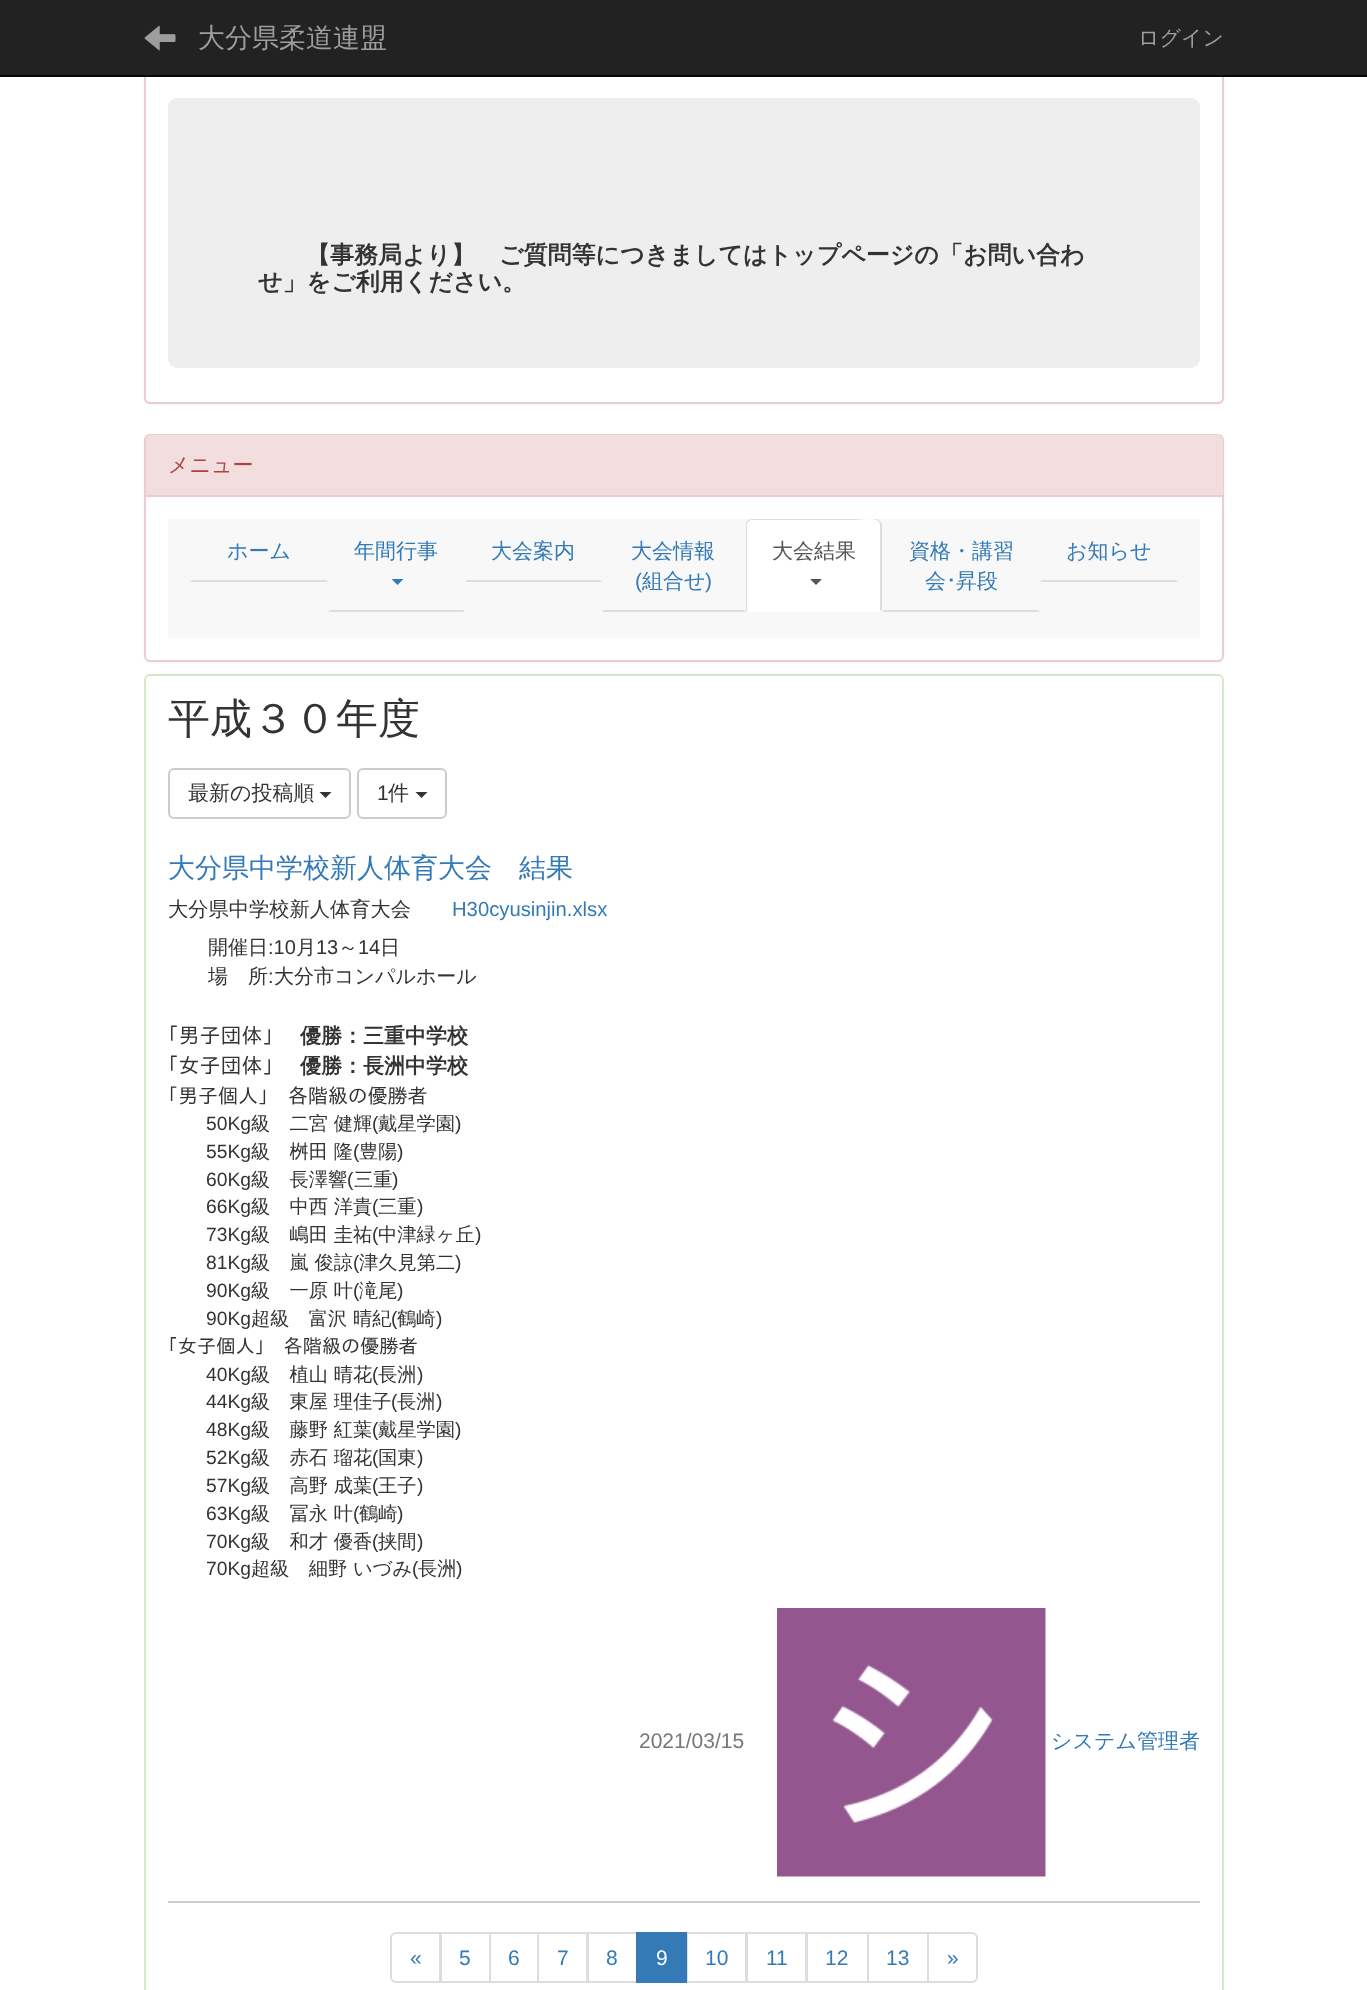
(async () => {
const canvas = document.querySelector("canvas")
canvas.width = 1367
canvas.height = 1990
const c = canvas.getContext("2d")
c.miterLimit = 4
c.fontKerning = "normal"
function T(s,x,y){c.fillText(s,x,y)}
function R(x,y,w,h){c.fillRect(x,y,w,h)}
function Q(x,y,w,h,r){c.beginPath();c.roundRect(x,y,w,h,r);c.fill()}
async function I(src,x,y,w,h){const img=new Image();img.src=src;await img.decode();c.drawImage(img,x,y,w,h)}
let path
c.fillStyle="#fff"
R(0,0,1367,1990)
c.fillStyle="#0000000d"
c.filter="blur(1px)"
c.beginPath()
c.roundRect(144,2,1080,403,6)
c.fill()
c.filter="none"
c.fillStyle="#fff"
c.beginPath()
c.roundRect(145,1,1078,402,5)
c.fill()
c.strokeStyle="#ebccd1"
c.lineWidth=2
c.stroke()
c.fillStyle="#222"
R(0,0,1367,75)
c.fillStyle="#080808"
R(0,75,1367,2)
await I("1.png",144,25,32,26)
c.font="500 27px WenQuanYi Zen Hei"
c.fillStyle="#9d9d9d"
T("大分県柔道連盟",198,47)
c.font="500 21px WenQuanYi Zen Hei"
T("ログイン",1138,45)
c.fillStyle="#eee"
Q(168,98,1032,270,9)
c.font="bold 24px WenQuanYi Zen Hei"
c.fillStyle="#333"
T("【事務局より】",306,263)
T("ご質問等につきましてはトップページの「お問い合わ",499,263)
T("せ」をご利用ください。",258,290)
c.fillStyle="#0000000d"
c.filter="blur(1px)"
c.beginPath()
c.roundRect(144,435,1080,228,6)
c.fill()
c.filter="none"
c.fillStyle="#fff"
c.beginPath()
c.roundRect(145,435,1078,226,5)
c.fill()
c.stroke()
c.fillStyle="#f2dede"
c.beginPath()
c.roundRect(146,435,1077,62,[5,5,0,0])
c.fill()
c.fillStyle="#ebccd1"
R(146,495,1077,2)
c.font="500 21px WenQuanYi Zen Hei"
c.fillStyle="#a94442"
T("メニュー",168,472)
c.fillStyle="#f8f8f8"
R(168,519,1032,119)
c.fillStyle="#ddd"
path = new Path2D("M190 582h138l-2-2h-134z")
c.fill(path)
c.fillStyle="#337ab7"
T("ホーム",227,558)
c.fillStyle="#ddd"
path = new Path2D("M465 612l-2-2h-133l-2 2z")
c.fill(path)
c.fillStyle="#337ab7"
T("年間行事",354,558)
path = new Path2D("M391.5 579h12l-6 6z")
c.fill(path)
c.fillStyle="#ddd"
path = new Path2D("M602 582l-2-2h-133l-2 2z")
c.fill(path)
c.fillStyle="#337ab7"
T("大会案内",491,558)
c.fillStyle="#ddd"
path = new Path2D("M746 612l-2-2h-140l-2 2z")
c.fill(path)
c.fillStyle="#337ab7"
T("大会情報",631,558)
c.font="21px Liberation Sans"
T("(",635,588)
c.font="500 21px WenQuanYi Zen Hei"
T("組合せ",642,588)
c.font="21px Liberation Sans"
T(")",705,588)
c.fillStyle="#fff"
c.beginPath()
c.roundRect(746,519,136,93,[6,6,0,0])
c.fill()
c.fillStyle="#ddd"
path = new Path2D("M752 519c-2 0-4 1-5 2l1 1l3-2h104c2 0 20-4 24 2l1-1c-1-1-2-2-4-2z")
c.fill(path)
path = new Path2D("M882 612v-88l-2-3l-1 1l1 3v85z")
c.fill(path)
c.fillStyle="#fff"
path = new Path2D("M882 612l-2-2h-132l-2 2z")
c.fill(path)
c.fillStyle="#ddd"
path = new Path2D("M747 521c-1 1-1 3-1 4v87l2-2h-1v-85l1-3z")
c.fill(path)
c.font="500 21px WenQuanYi Zen Hei"
c.fillStyle="#555"
T("大会結果",772,558)
path = new Path2D("M810 579h12l-6 6z")
c.fill(path)
c.fillStyle="#ddd"
path = new Path2D("M1040 612l-2-2h-154l-2 2z")
c.fill(path)
c.fillStyle="#337ab7"
T("資格・講習",909,558)
T("会",925,588)
c.font="21px IPAPGothic"
T("･",946,588)
c.font="500 21px WenQuanYi Zen Hei"
T("昇段",956,588)
c.fillStyle="#ddd"
path = new Path2D("M1178 582l-2-2h-134l-2 2z")
c.fill(path)
c.fillStyle="#337ab7"
T("お知らせ",1066,558)
c.beginPath()
c.roundRect(145,675,1078,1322,5)
c.strokeStyle="#d6e9c6"
c.stroke()
c.font="500 42px WenQuanYi Zen Hei"
c.fillStyle="#333"
T("平成３０年度",168,733)
c.beginPath()
c.roundRect(169,769,181,49,5)
c.strokeStyle="#ccc"
c.stroke()
c.font="500 21px WenQuanYi Zen Hei"
T("最新の投稿順",188,800)
path = new Path2D("M319.5 792h12l-6 6z")
c.fill(path)
c.beginPath()
c.roundRect(358,769,88,49,5)
c.stroke()
c.font="21px Liberation Sans"
T("1",377,800)
c.font="500 21px WenQuanYi Zen Hei"
T("件",388,800)
path = new Path2D("M415.5 792h12l-6 6z")
c.fill(path)
c.fillStyle="#ccc"
R(168,1901,1032,2)
c.font="500 27px WenQuanYi Zen Hei"
c.fillStyle="#337ab7"
T("大分県中学校新人体育大会　結果",168,877)
c.font="500 20.25px WenQuanYi Zen Hei"
c.fillStyle="#333"
T("大分県中学校新人体育大会",168,916)
c.font="20.25px Liberation Sans"
c.fillStyle="#337ab7"
T("H30cyusinjin.xlsx",452,916)
c.font="500 20px WenQuanYi Zen Hei"
c.fillStyle="#333"
T("開催日",208,954)
c.font="20px Liberation Sans"
T(":10",268,954)
c.font="500 20px WenQuanYi Zen Hei"
T("月",296,954)
c.font="20px Liberation Sans"
T("13",316,954)
c.font="500 20px WenQuanYi Zen Hei"
T("～",338,954)
c.font="20px Liberation Sans"
T("14",358,954)
c.font="500 20px WenQuanYi Zen Hei"
T("日",380,954)
T("場　所",208,983)
c.font="20px Liberation Sans"
T(":",268,983)
c.font="500 20px WenQuanYi Zen Hei"
T("大分市コンパルホール",274,983)
c.font="21px IPAPGothic"
T("｢男子団体｣",168,1043)
c.font="bold 21px WenQuanYi Zen Hei"
T("優勝：三重中学校",300,1043)
c.font="21px IPAPGothic"
T("｢女子団体｣",168,1073)
c.font="bold 21px WenQuanYi Zen Hei"
T("優勝：長洲中学校",300,1073)
c.font="20px IPAPGothic"
T("｢男子個人｣　各階級の優勝者",168,1103)
c.font="19.25px Liberation Sans"
T("50Kg",206,1130)
c.font="500 19.25px WenQuanYi Zen Hei"
T("級　二宮 健輝",251,1130)
c.font="19.25px Liberation Sans"
T("(",372,1130)
c.font="500 19.25px WenQuanYi Zen Hei"
T("戴星学園",378,1130)
c.font="19.25px Liberation Sans"
T(")",455,1130)
T("55Kg",206,1158)
c.font="500 19.25px WenQuanYi Zen Hei"
T("級　桝田 隆",251,1158)
c.font="19.25px Liberation Sans"
T("(",353,1158)
c.font="500 19.25px WenQuanYi Zen Hei"
T("豊陽",359,1158)
c.font="19.25px Liberation Sans"
T(")",397,1158)
T("60Kg",206,1186)
c.font="500 19.25px WenQuanYi Zen Hei"
T("級　長澤響",251,1186)
c.font="19.25px Liberation Sans"
T("(",347,1186)
c.font="500 19.25px WenQuanYi Zen Hei"
T("三重",354,1186)
c.font="19.25px Liberation Sans"
T(")",392,1186)
T("66Kg",206,1213)
c.font="500 19.25px WenQuanYi Zen Hei"
T("級　中西 洋貴",251,1213)
c.font="19.25px Liberation Sans"
T("(",372,1213)
c.font="500 19.25px WenQuanYi Zen Hei"
T("三重",378,1213)
c.font="19.25px Liberation Sans"
T(")",417,1213)
T("73Kg",206,1241)
c.font="500 19.25px WenQuanYi Zen Hei"
T("級　嶋田 圭祐",251,1241)
c.font="19.25px Liberation Sans"
T("(",372,1241)
c.font="500 19.25px WenQuanYi Zen Hei"
T("中津緑ヶ丘",378,1241)
c.font="19.25px Liberation Sans"
T(")",475,1241)
T("81Kg",206,1269)
c.font="500 19.25px WenQuanYi Zen Hei"
T("級　嵐 俊諒",251,1269)
c.font="19.25px Liberation Sans"
T("(",353,1269)
c.font="500 19.25px WenQuanYi Zen Hei"
T("津久見第二",359,1269)
c.font="19.25px Liberation Sans"
T(")",455,1269)
T("90Kg",206,1297)
c.font="500 19.25px WenQuanYi Zen Hei"
T("級　一原 叶",251,1297)
c.font="19.25px Liberation Sans"
T("(",353,1297)
c.font="500 19.25px WenQuanYi Zen Hei"
T("滝尾",359,1297)
c.font="19.25px Liberation Sans"
T(")",397,1297)
T("90Kg",206,1325)
c.font="500 19.25px WenQuanYi Zen Hei"
T("超級　富沢 晴紀",251,1325)
c.font="19.25px Liberation Sans"
T("(",391,1325)
c.font="500 19.25px WenQuanYi Zen Hei"
T("鶴崎",397,1325)
c.font="19.25px Liberation Sans"
T(")",436,1325)
c.font="19.25px IPAPGothic"
T("｢女子個人｣　各階級の優勝者",168,1353)
c.font="19.25px Liberation Sans"
T("40Kg",206,1381)
c.font="500 19.25px WenQuanYi Zen Hei"
T("級　植山 晴花",251,1381)
c.font="19.25px Liberation Sans"
T("(",372,1381)
c.font="500 19.25px WenQuanYi Zen Hei"
T("長洲",378,1381)
c.font="19.25px Liberation Sans"
T(")",417,1381)
T("44Kg",206,1408)
c.font="500 19.25px WenQuanYi Zen Hei"
T("級　東屋 理佳子",251,1408)
c.font="19.25px Liberation Sans"
T("(",391,1408)
c.font="500 19.25px WenQuanYi Zen Hei"
T("長洲",397,1408)
c.font="19.25px Liberation Sans"
T(")",436,1408)
T("48Kg",206,1436)
c.font="500 19.25px WenQuanYi Zen Hei"
T("級　藤野 紅葉",251,1436)
c.font="19.25px Liberation Sans"
T("(",372,1436)
c.font="500 19.25px WenQuanYi Zen Hei"
T("戴星学園",378,1436)
c.font="19.25px Liberation Sans"
T(")",455,1436)
T("52Kg",206,1464)
c.font="500 19.25px WenQuanYi Zen Hei"
T("級　赤石 瑠花",251,1464)
c.font="19.25px Liberation Sans"
T("(",372,1464)
c.font="500 19.25px WenQuanYi Zen Hei"
T("国東",378,1464)
c.font="19.25px Liberation Sans"
T(")",417,1464)
T("57Kg",206,1492)
c.font="500 19.25px WenQuanYi Zen Hei"
T("級　高野 成葉",251,1492)
c.font="19.25px Liberation Sans"
T("(",372,1492)
c.font="500 19.25px WenQuanYi Zen Hei"
T("王子",378,1492)
c.font="19.25px Liberation Sans"
T(")",417,1492)
T("63Kg",206,1520)
c.font="500 19.25px WenQuanYi Zen Hei"
T("級　冨永 叶",251,1520)
c.font="19.25px Liberation Sans"
T("(",353,1520)
c.font="500 19.25px WenQuanYi Zen Hei"
T("鶴崎",359,1520)
c.font="19.25px Liberation Sans"
T(")",397,1520)
T("70Kg",206,1548)
c.font="500 19.25px WenQuanYi Zen Hei"
T("級　和才 優香",251,1548)
c.font="19.25px Liberation Sans"
T("(",372,1548)
c.font="500 19.25px WenQuanYi Zen Hei"
T("挟間",378,1548)
c.font="19.25px Liberation Sans"
T(")",417,1548)
T("70Kg",206,1575)
c.font="500 19.25px WenQuanYi Zen Hei"
T("超級　細野 いづみ",251,1575)
c.font="19.25px Liberation Sans"
T("(",412,1575)
c.font="500 19.25px WenQuanYi Zen Hei"
T("長洲",418,1575)
c.font="19.25px Liberation Sans"
T(")",456,1575)
c.font="21px Liberation Sans"
c.fillStyle="#777"
T("2021/03/15",639,1748)
await I("2.png",777,1608,269,269)
c.font="500 21px WenQuanYi Zen Hei"
c.fillStyle="#337ab7"
T("システム管理者",1051,1748)
c.beginPath()
c.roundRect(391,1933,49,49,[5,0,0,5])
c.strokeStyle="#ddd"
c.stroke()
c.font="21px Liberation Sans"
T("«",410,1965)
c.strokeRect(441,1933,49,49)
T("5",459,1965)
c.strokeRect(490,1933,48,49)
T("6",508,1965)
c.strokeRect(538,1933,49,49)
T("7",557,1965)
c.strokeRect(588,1933,49,49)
T("8",606,1965)
c.strokeRect(687,1933,59,49)
R(636,1932,51,51)
c.fillStyle="#fff"
T("9",656,1965)
c.fillStyle="#337ab7"
T("10",705,1965)
c.strokeRect(747,1933,59,49)
T("11",766,1965)
c.strokeRect(807,1933,61,49)
T("12",825,1965)
c.strokeRect(868,1933,60,49)
T("13",886,1965)
c.fillStyle="#fff"
c.beginPath()
c.roundRect(928,1933,49,49,[0,5,5,0])
c.fill()
c.stroke()
c.fillStyle="#337ab7"
T("»",947,1965)
})()
